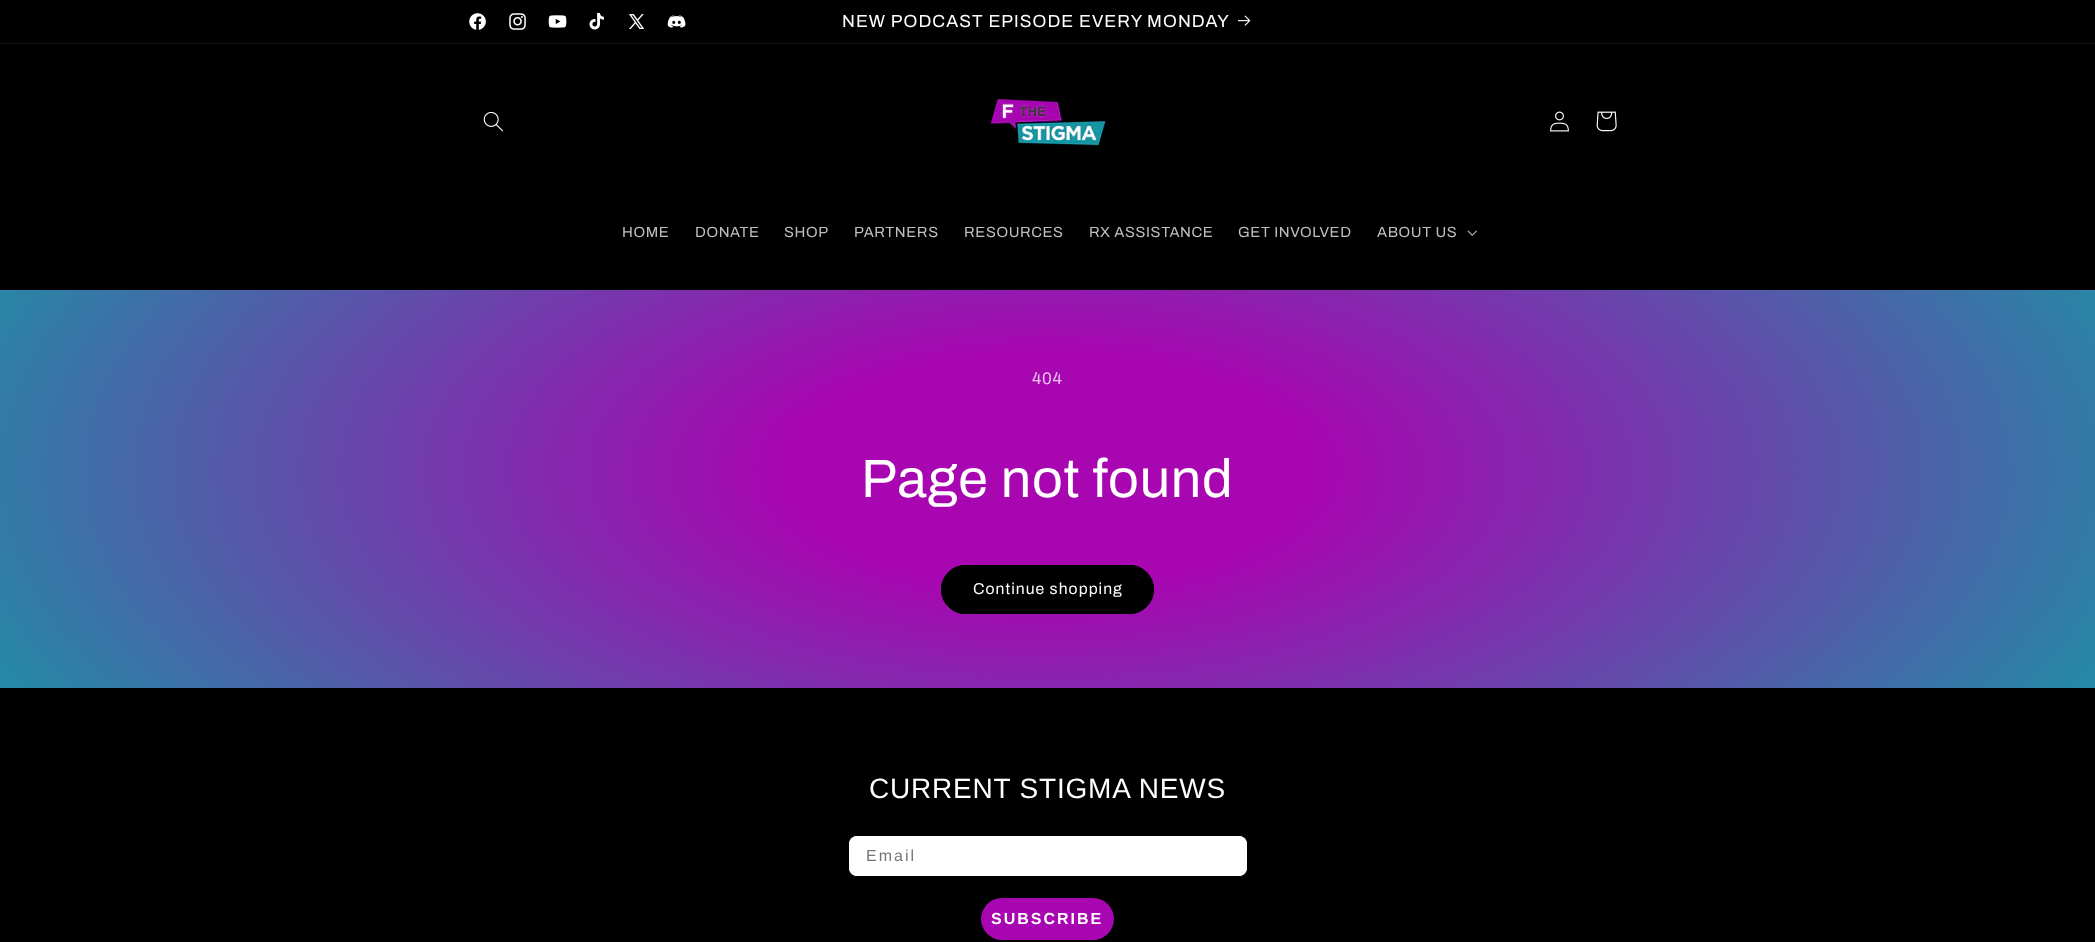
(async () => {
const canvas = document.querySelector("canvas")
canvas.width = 2095
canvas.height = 942
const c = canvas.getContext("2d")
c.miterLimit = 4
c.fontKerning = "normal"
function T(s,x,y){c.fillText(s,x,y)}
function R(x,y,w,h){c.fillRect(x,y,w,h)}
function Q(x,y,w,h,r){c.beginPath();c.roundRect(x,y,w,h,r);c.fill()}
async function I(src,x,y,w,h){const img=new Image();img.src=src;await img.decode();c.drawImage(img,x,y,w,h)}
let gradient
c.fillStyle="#fff"
R(0,0,2095,942)
gradient = c.createRadialGradient(1048,1047.37,0,1048,1047.37,1481)
gradient.addColorStop(.18,"#a706b1")
gradient.addColorStop(.83,"#1896a4")
c.fillStyle = gradient
c.beginPath()
c.rect(0,290,2095,398)
c.save()
c.clip()
c.scale(1,666 / 1481)
c.fillRect(0,0,2095,2095)
c.restore()
c.fillStyle="#000"
R(0,0,2095,43)
c.fillStyle="#141414"
R(0,43,2095,1)
await I("1.png",469,13,17,17)
await I("2.png",509,13,17,17)
await I("3.png",548,15,19,13)
await I("4.png",589,12,15,18)
await I("5.png",629,14,16,15)
await I("6.png",667,15,19,13)
c.letterSpacing="1.05px"
c.font="17.55px Archivo"
c.fillStyle="#fff"
T("NEW PODCAST EPISODE EVERY MONDAY",842,27)
await I("7.png",1238,15,13,11)
c.fillStyle="#000"
R(0,44,2095,246)
await I("8.png",483,111,20,21)
await I("9.png",990,98,117,49)
await I("10.png",1550,111,19,21)
await I("11.png",1596,111,21,21)
c.letterSpacing="0.6px"
c.font="14.75px Archivo"
c.fillStyle="#bfbfbf"
T("HOME",622,237)
T("DONATE",695,237)
T("SHOP",784,237)
T("PARTNERS",854,237)
T("RESOURCES",964,237)
T("RX ASSISTANCE",1089,237)
T("GET INVOLVED",1238,237)
T("ABOUT US",1377,237)
await I("12.png",1467,230,10,6)
c.font="17px Archivo"
c.fillStyle="#e9c1ec"
T("404",1032,384)
c.letterSpacing="0.8px"
c.font="54px Archivo"
c.fillStyle="#fff"
T("Page not found",861,497)
c.fillStyle="#000"
Q(941,565,213,49,24.5)
c.beginPath()
c.roundRect(941.5,565.5,212,48,24)
c.strokeStyle="#000"
c.stroke()
c.letterSpacing="1.05px"
c.font="15.75px Archivo"
c.fillStyle="#fff"
T("Continue shopping",973,594)
c.fillStyle="#000"
R(0,688,2095,254)
c.letterSpacing="0.8px"
c.font="28px Liberation Sans"
c.fillStyle="#fff"
T("CURRENT STIGMA NEWS",869,798)
Q(849,836,398,40,8)
c.beginPath()
c.roundRect(849.5,836.5,397,39,7.5)
c.strokeStyle="#fffffffa"
c.stroke()
c.letterSpacing="2px"
c.font="16px Liberation Sans"
c.fillStyle="#767676"
T("Email",866,861)
c.fillStyle="#a706b1"
Q(981,898,133,42,21)
c.font="bold 16px Liberation Sans"
c.fillStyle="#fff"
T("SUBSCRIBE",991,924)
})()
